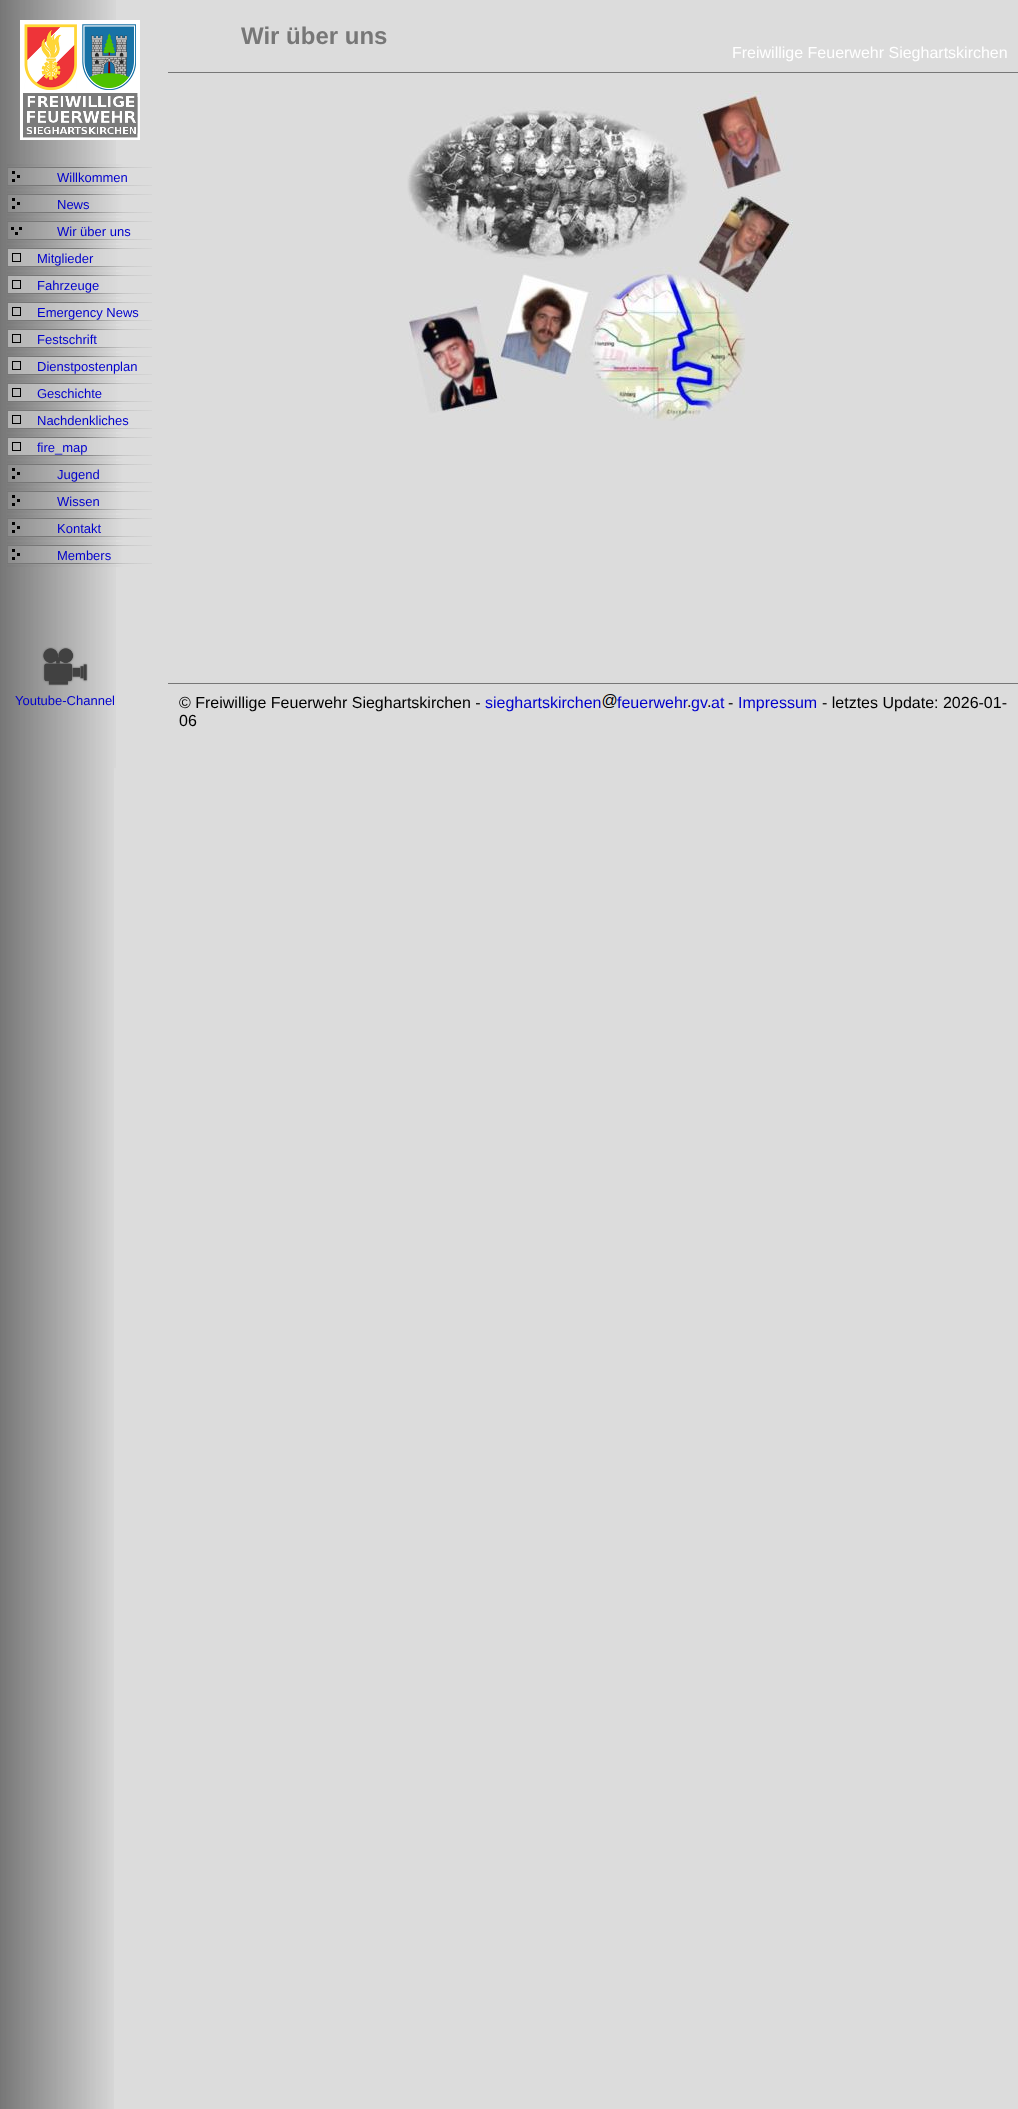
(async () => {
const canvas = document.querySelector("canvas")
canvas.width = 1018
canvas.height = 2109
const c = canvas.getContext("2d")
c.miterLimit = 4
c.fontKerning = "normal"
function T(s,x,y){c.fillText(s,x,y)}
function R(x,y,w,h){c.fillRect(x,y,w,h)}
async function I(src,x,y,w,h){const img=new Image();img.src=src;await img.decode();c.drawImage(img,x,y,w,h)}
c.fillStyle="#dcdcdc"
R(0,0,1018,2109)
await I("1.png",0,0,114,2109)
c.font="bold 24px Liberation Sans"
c.fillStyle="#777"
T("Wir über uns",241,44)
R(168,72,850,1)
c.font="16px Liberation Sans"
c.fillStyle="#fff"
T("Freiwillige Feuerwehr Sieghartskirchen",732,58)
c.fillStyle="#d7d7d7"
R(114,0,2,768)
await I("2.png",20,20,120,120)
await I("3.png",7,164,145,25)
c.font="13px Liberation Sans"
c.fillStyle="#00c"
T("Willkommen",57,182)
await I("3.png",7,191,145,25)
T("News",57,209)
await I("4.png",7,218,145,25)
T("Wir über uns",57,236)
await I("5.png",7,245,145,25)
T("Mitglieder",37,263)
await I("5.png",7,272,145,25)
T("Fahrzeuge",37,290)
await I("5.png",7,299,145,25)
T("Emergency News",37,317)
await I("5.png",7,326,145,25)
T("Festschrift",37,344)
await I("5.png",7,353,145,25)
T("Dienstpostenplan",37,371)
await I("5.png",7,380,145,25)
T("Geschichte",37,398)
await I("5.png",7,407,145,25)
T("Nachdenkliches",37,425)
await I("5.png",7,434,145,25)
T("fire_map",37,452)
await I("3.png",7,461,145,25)
T("Jugend",57,479)
await I("3.png",7,488,145,25)
T("Wissen",57,506)
await I("3.png",7,515,145,25)
T("Kontakt",57,533)
await I("3.png",7,542,145,25)
T("Members",57,560)
await I("6.png",42,647,46,39)
T("Youtube-Channel",15,705)
await I("7.png",407,91,386,330)
c.fillStyle="#777"
R(168,683,850,1)
c.font="16px Liberation Sans"
c.fillStyle="#000"
T("© Freiwillige Feuerwehr Sieghartskirchen -",179,708)
c.fillStyle="#00c"
T("sieghartskirchen",485,708)
await I("8.png",602,694,15,14)
T("feuerwehr",617,708)
T("gv",691,708)
T("at",711,708)
c.fillStyle="#000"
T("-",728,708)
c.fillStyle="#00c"
T("Impressum",738,708)
c.fillStyle="#000"
T("- letztes Update: 2026-01-",822,708)
await I("9.png",688,705,3,2)
await I("9.png",708,705,3,2)
T("06",179,726)
})()
